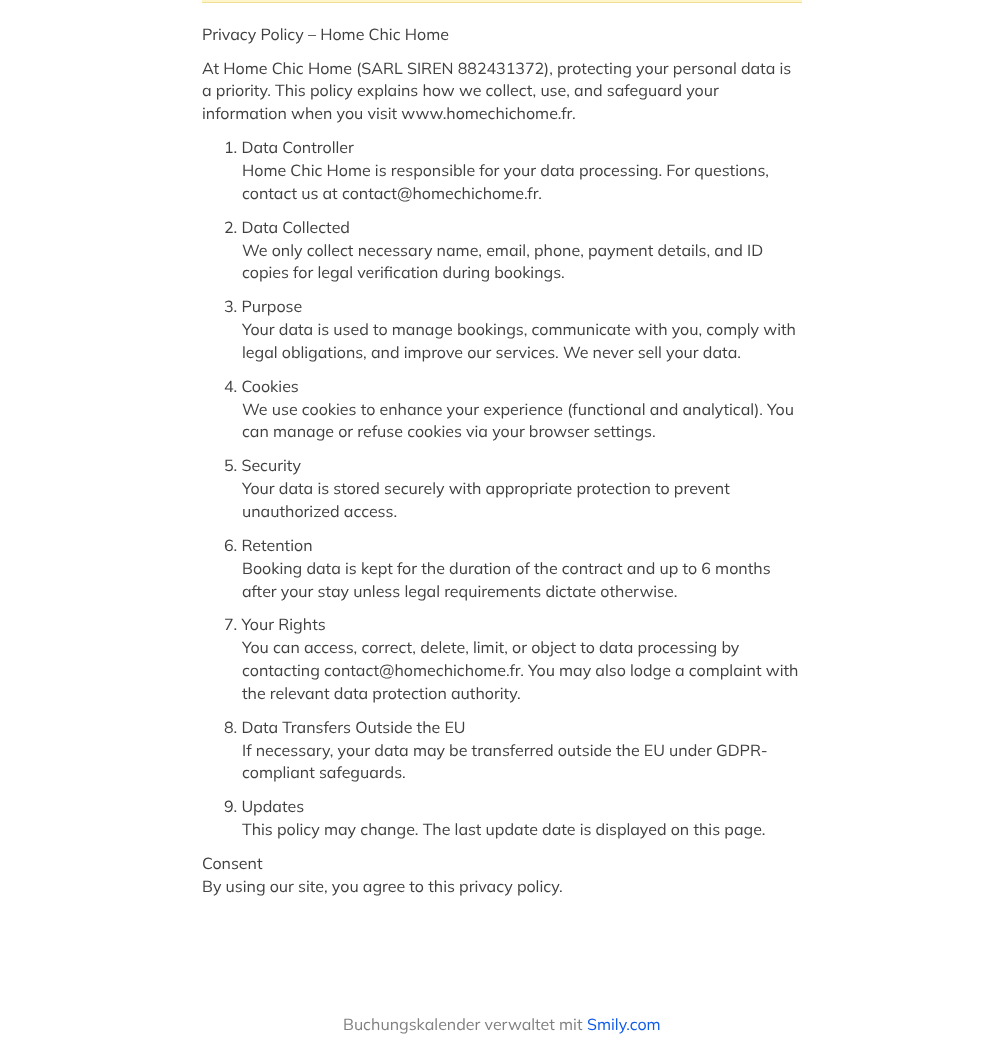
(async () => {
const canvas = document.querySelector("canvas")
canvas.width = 1003
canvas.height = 1056
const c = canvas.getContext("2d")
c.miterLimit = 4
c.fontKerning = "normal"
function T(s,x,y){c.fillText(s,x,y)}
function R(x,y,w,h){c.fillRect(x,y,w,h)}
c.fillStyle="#fff"
R(0,0,1003,1056)
c.fillStyle="#fff5ca"
R(202,0,600,2)
c.fillStyle="#f1df95"
R(202,2,600,1)
c.font="200 16px Mulish"
c.fillStyle="#404040"
T("Privacy Policy – Home Chic Home",202,40)
T("At Home Chic Home (SARL SIREN 882431372), protecting your personal data is",202,74)
T("a priority. This policy explains how we collect, use, and safeguard your",202,96)
T("information when you visit www.homechichome.fr.",202,119)
T("1. Data Controller",224,153)
T("Home Chic Home is responsible for your data processing. For questions,",242,176)
T("contact us at contact@homechichome.fr.",242,199)
T("2. Data Collected",224,233)
T("We only collect necessary name, email, phone, payment details, and ID",242,256)
T("copies for legal verification during bookings.",242,278)
T("3. Purpose",224,312)
T("Your data is used to manage bookings, communicate with you, comply with",242,335)
T("legal obligations, and improve our services. We never sell your data.",242,358)
T("4. Cookies",224,392)
T("We use cookies to enhance your experience (functional and analytical). You",242,415)
T("can manage or refuse cookies via your browser settings.",242,437)
T("5. Security",224,471)
T("Your data is stored securely with appropriate protection to prevent",242,494)
T("unauthorized access.",242,517)
T("6. Retention",224,551)
T("Booking data is kept for the duration of the contract and up to 6 months",242,574)
T("after your stay unless legal requirements dictate otherwise.",242,597)
T("7. Your Rights",224,630)
T("You can access, correct, delete, limit, or object to data processing by",242,653)
T("contacting contact@homechichome.fr. You may also lodge a complaint with",242,676)
T("the relevant data protection authority.",242,699)
T("8. Data Transfers Outside the EU",224,733)
T("If necessary, your data may be transferred outside the EU under GDPR-",242,756)
T("compliant safeguards.",242,778)
T("9. Updates",224,812)
T("This policy may change. The last update date is displayed on this page.",242,835)
T("Consent",202,869)
T("By using our site, you agree to this privacy policy.",202,892)
c.fillStyle="#808080"
T("Buchungskalender verwaltet mit",343,1030)
c.fillStyle="#0c5ae9"
T("Smily.com",587,1030)
})()
